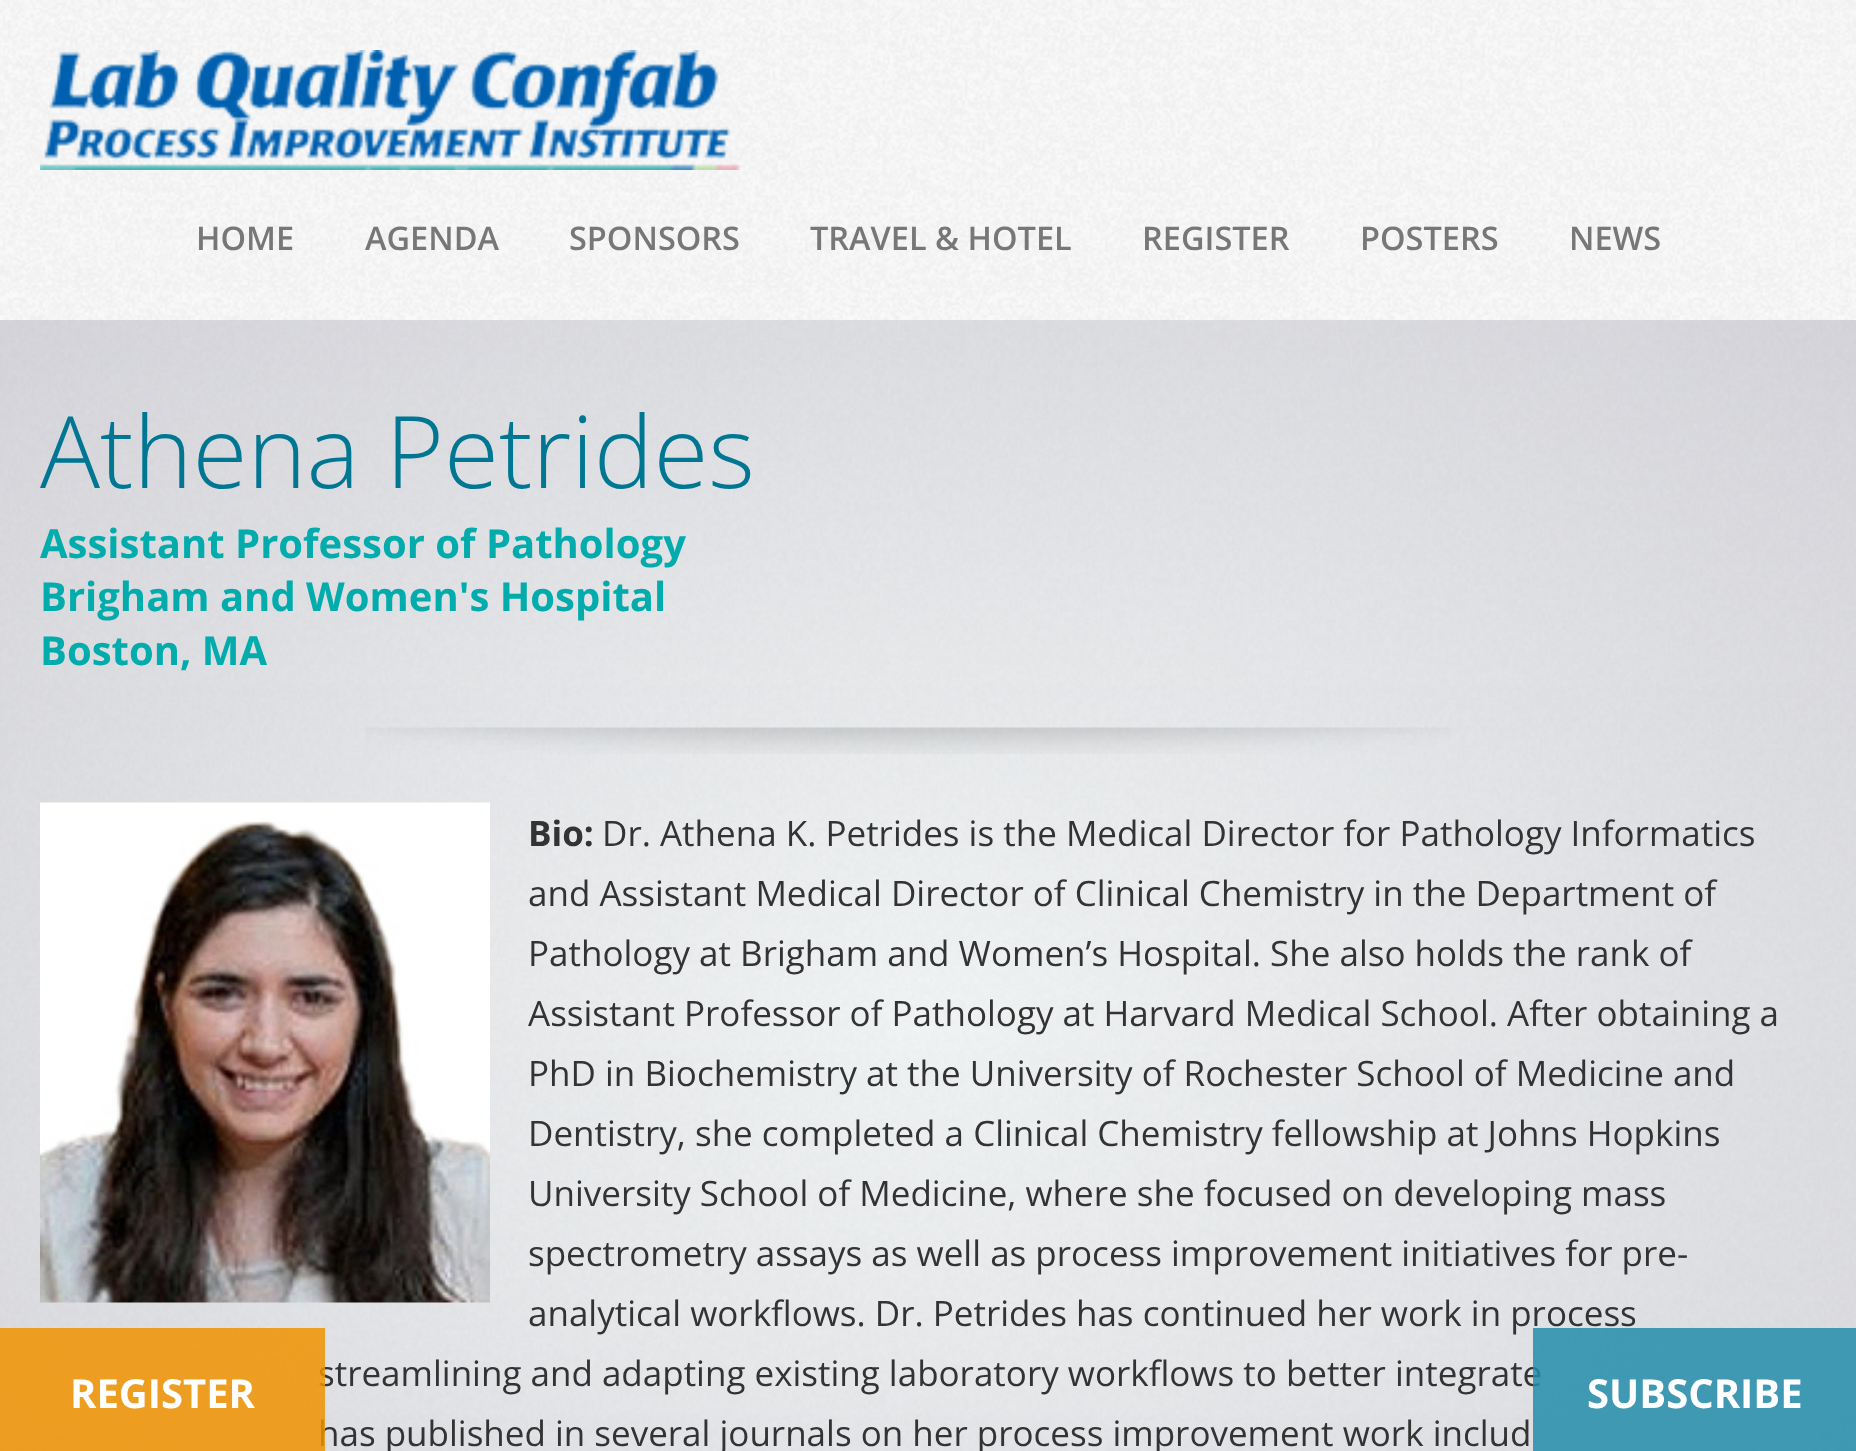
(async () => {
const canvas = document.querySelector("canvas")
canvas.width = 1856
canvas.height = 1451
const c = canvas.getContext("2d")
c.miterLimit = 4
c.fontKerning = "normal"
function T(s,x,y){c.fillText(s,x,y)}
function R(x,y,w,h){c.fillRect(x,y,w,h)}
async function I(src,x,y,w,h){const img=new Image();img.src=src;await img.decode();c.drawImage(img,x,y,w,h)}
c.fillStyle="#fff"
R(0,0,1856,1451)
await I("1.png",0,0,1856,1451)
await I("2.png",40,50,700,120)
c.font="600 32.5px Open Sans"
c.fillStyle="#777"
T("HOME",196,250)
T("AGENDA",365,250)
T("SPONSORS",569,250)
T("TRAVEL & HOTEL",810,250)
T("REGISTER",1142,250)
T("POSTERS",1360,250)
T("NEWS",1569,250)
await I("3.png",0,320,1856,1131)
await I("4.png",366,727,1085,27)
c.font="300 100px Open Sans"
c.fillStyle="#007792"
T("Athena Petrides",40,488)
c.font="bold 40px Open Sans"
c.fillStyle="#02acac"
T("Assistant Professor of Pathology",40,558)
T("Brigham and Women's Hospital",40,611)
T("Boston, MA",40,665)
await I("5.png",40,802,450,501)
c.font="bold 35px Open Sans"
c.fillStyle="#333"
T("Bio:",528,846)
c.font="35px Open Sans"
T("Dr. Athena K. Petrides is the Medical Director for Pathology Informatics",602,846)
T("and Assistant Medical Director of Clinical Chemistry in the Department of",528,906)
T("Pathology at Brigham and Women’s Hospital. She also holds the rank of",528,966)
T("Assistant Professor of Pathology at Harvard Medical School. After obtaining a",528,1026)
T("PhD in Biochemistry at the University of Rochester School of Medicine and",528,1086)
T("Dentistry, she completed a Clinical Chemistry fellowship at Johns Hopkins",528,1146)
T("University School of Medicine, where she focused on developing mass",528,1206)
T("spectrometry assays as well as process improvement initiatives for pre-",528,1266)
T("analytical workflows. Dr. Petrides has continued her work in process",528,1326)
T("streamlining and adapting existing laboratory workflows to better integrate",318,1386)
T("has published in several journals on her process improvement work includ",318,1446)
c.fillStyle="#f09300d9"
R(0,1328,325,123)
c.font="bold 40px Open Sans"
c.fillStyle="#fff"
T("REGISTER",70,1408)
c.fillStyle="#258daad9"
R(1533,1328,323,123)
c.fillStyle="#fff"
T("SUBSCRIBE",1587,1408)
})()
